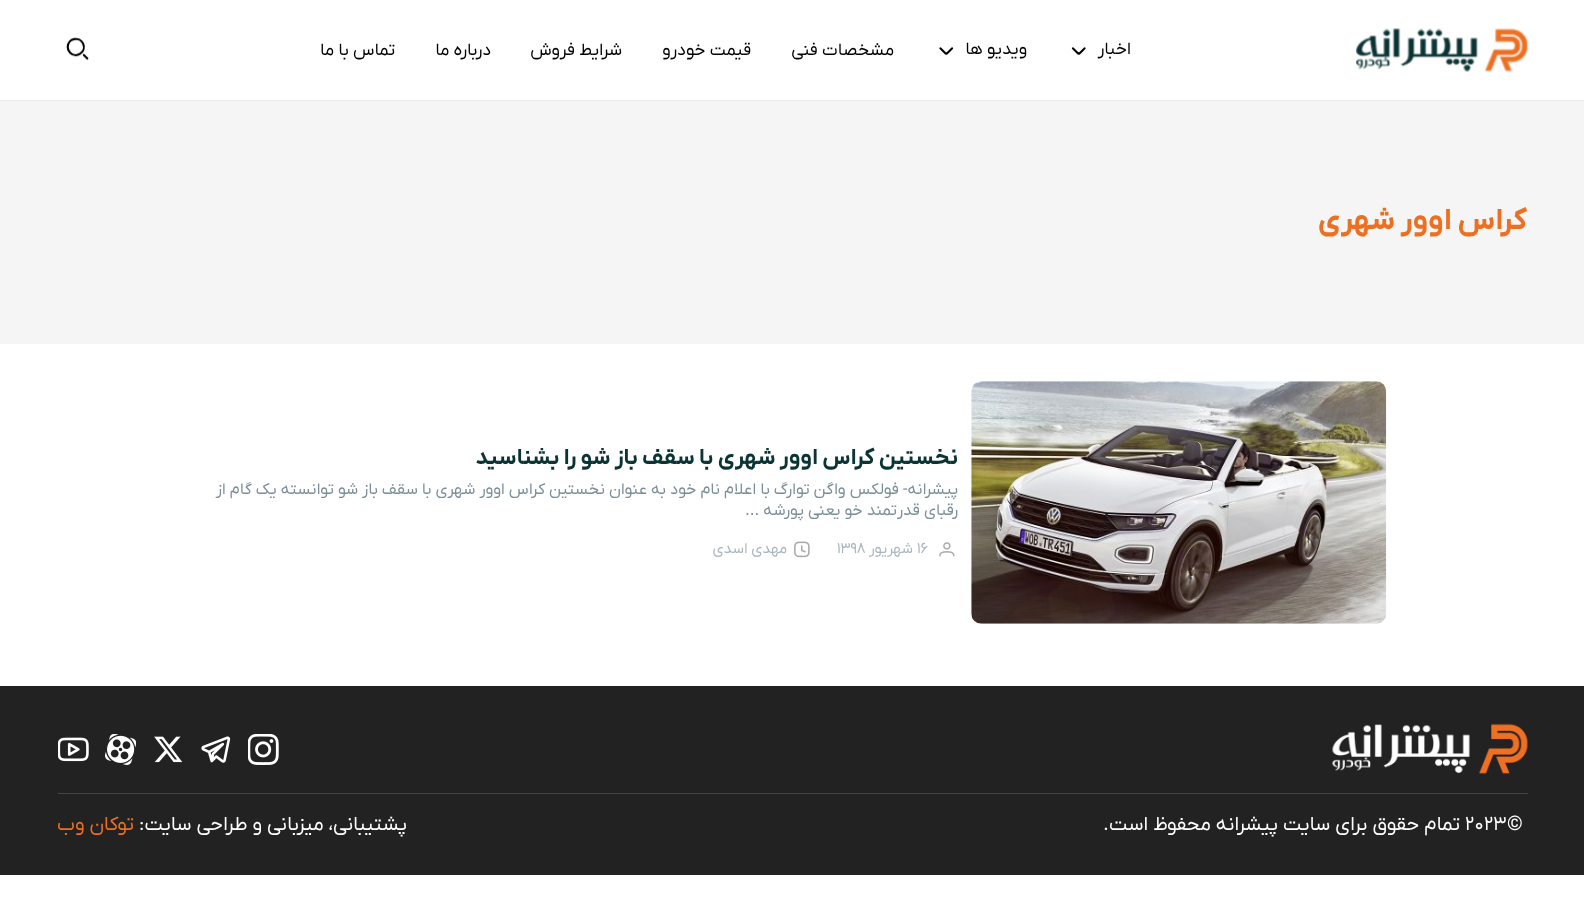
(async () => {
const canvas = document.querySelector("canvas")
canvas.width = 1584
canvas.height = 904
const c = canvas.getContext("2d")
c.miterLimit = 4
c.fontKerning = "normal"
function T(s,x,y){c.fillText(s,x,y)}
function R(x,y,w,h){c.fillRect(x,y,w,h)}
async function I(src,x,y,w,h){const img=new Image();img.src=src;await img.decode();c.drawImage(img,x,y,w,h)}
c.fillStyle="#fff"
R(0,0,1584,904)
c.fillStyle="#ebebeb"
R(0,100,1584,1)
await I("1.png",1356,28,173,44)
c.direction="rtl"
c.font="17.5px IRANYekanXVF"
c.fillStyle="#000"
T("اخبار",1131,54)
await I("2.png",1071,47,15,8)
T("ویدیو ها",1027,54)
await I("3.png",939,47,15,8)
T("مشخصات فنی",894,55)
T("قیمت خودرو",751,55)
T("شرایط فروش",622,55)
T("درباره ما",491,55)
T("تماس با ما",395,55)
await I("4.png",66,37,23,24)
c.fillStyle="#f5f5f5"
R(0,101,1584,243)
c.font="bold 30px IRANYekanXVF"
c.fillStyle="#ed7022"
T("کراس اوور شهری",1527,229)
await I("5.png",971,381,416,243)
c.font="bold 22.5px IRANYekanXVF"
c.fillStyle="#0b3434"
T("نخستین کراس اوور شهری با سقف باز شو را بشناسید",958,464)
c.font="16.25px IRANYekanXVF"
c.fillStyle="#798e97"
T("پیشرانه- فولکس‌ واگن توارگ با اعلام نام خود به عنوان نخستین کراس اوور شهری با سقف باز شو توانسته یک گام از",958,494)
T("رقبای قدرتمند خو یعنی پورشه",958,515)
c.direction="ltr"
T("...",745,515)
await I("6.png",939,542,16,15)
c.font="15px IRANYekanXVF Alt"
c.fillStyle="#a7b5bc"
T("16",917,553)
c.direction="rtl"
c.font="15px IRANYekanXVF"
T("شهریور",913,553)
c.direction="ltr"
c.font="15px IRANYekanXVF Alt"
T("1398",837,553)
await I("7.png",794,541,16,17)
c.direction="rtl"
c.font="15px IRANYekanXVF"
T("مهدی اسدی",787,553)
c.fillStyle="#222"
R(0,686,1584,189)
c.fillStyle="#444"
R(58,793,1470,1)
await I("8.png",1332,723,196,51)
await I("9.png",248,734,31,31)
await I("10.png",201,736,30,27)
await I("11.png",154,736,29,27)
await I("12.png",105,734,31,31)
await I("13.png",58,737,31,25)
c.direction="ltr"
c.font="20px IRANYekanXVF"
c.fillStyle="#fff"
T("©",1507,830)
c.font="20px IRANYekanXVF Alt"
T("2023",1465,830)
c.direction="rtl"
c.font="20px IRANYekanXVF"
T("تمام حقوق برای سایت پیشرانه محفوظ است.",1460,830)
T("پشتیبانی، میزبانی و طراحی سایت:",407,830)
c.fillStyle="#ed7022"
T("توکان وب",134,830)
})()
